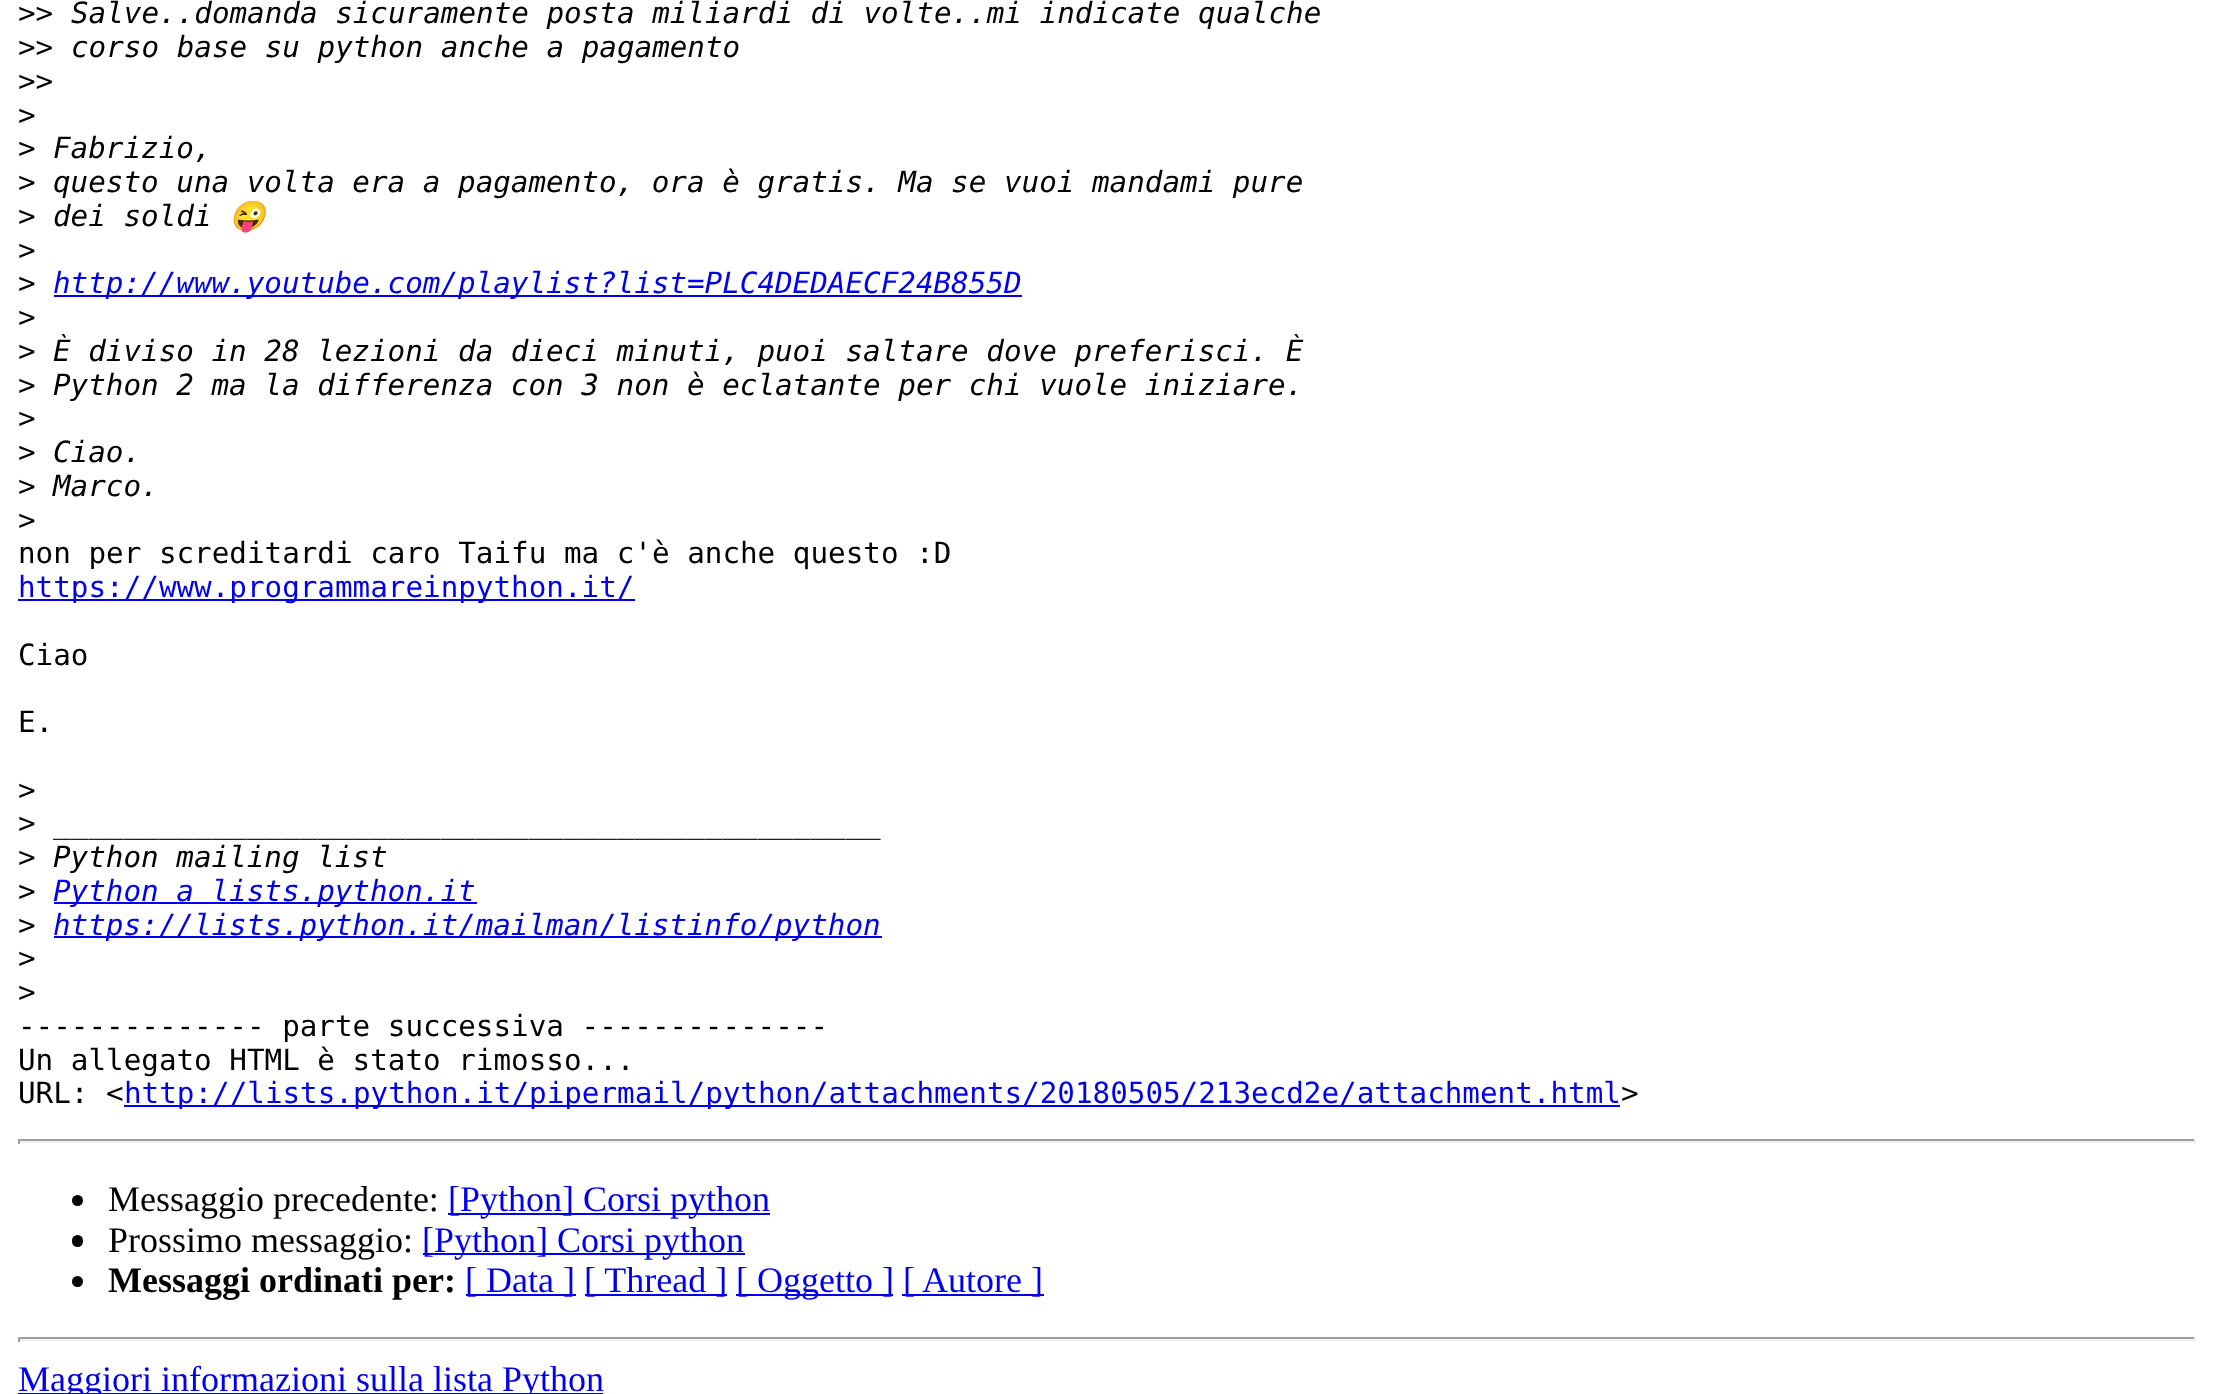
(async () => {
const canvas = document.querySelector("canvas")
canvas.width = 2214
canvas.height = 1394
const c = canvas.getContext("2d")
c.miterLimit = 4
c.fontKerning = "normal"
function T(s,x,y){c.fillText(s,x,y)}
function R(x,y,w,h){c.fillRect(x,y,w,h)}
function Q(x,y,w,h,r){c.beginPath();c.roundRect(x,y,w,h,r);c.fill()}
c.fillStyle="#fff"
R(0,0,2214,1394)
c.font="29.25px DejaVu Sans Mono"
c.fillStyle="#000"
T(">>",18,23)
c.font="italic 29.25px DejaVu Sans Mono"
T("Salve..domanda sicuramente posta miliardi di volte..mi indicate qualche",71,23)
c.font="29.25px DejaVu Sans Mono"
T(">>",18,57)
c.font="italic 29.25px DejaVu Sans Mono"
T("corso base su python anche a pagamento",71,57)
c.font="29.25px DejaVu Sans Mono"
T(">>",18,91)
T(">",18,125)
T(">",18,158)
c.font="italic 29.25px DejaVu Sans Mono"
T("Fabrizio,",53,158)
c.font="29.25px DejaVu Sans Mono"
T(">",18,192)
c.font="italic 29.25px DejaVu Sans Mono"
T("questo una volta era a pagamento, ora è gratis. Ma se vuoi mandami pure",53,192)
c.font="29.25px DejaVu Sans Mono"
T(">",18,226)
c.font="italic 29.25px DejaVu Sans Mono"
T("dei soldi",53,226)
c.font="italic 29.25px Noto Color Emoji"
T("😜",229,226)
c.font="29.25px DejaVu Sans Mono"
T(">",18,260)
T(">",18,293)
c.fillStyle="#00e"
R(54,295,968,2)
c.font="italic 29.25px DejaVu Sans Mono"
T("http://www.youtube.com/playlist?list=PLC4DEDAECF24B855D",53,293)
c.font="29.25px DejaVu Sans Mono"
c.fillStyle="#000"
T(">",18,327)
T(">",18,361)
c.font="italic 29.25px DejaVu Sans Mono"
T("È diviso in 28 lezioni da dieci minuti, puoi saltare dove preferisci. È",53,361)
c.font="29.25px DejaVu Sans Mono"
T(">",18,395)
c.font="italic 29.25px DejaVu Sans Mono"
T("Python 2 ma la differenza con 3 non è eclatante per chi vuole iniziare.",53,395)
c.font="29.25px DejaVu Sans Mono"
T(">",18,428)
T(">",18,462)
c.font="italic 29.25px DejaVu Sans Mono"
T("Ciao.",53,462)
c.font="29.25px DejaVu Sans Mono"
T(">",18,496)
c.font="italic 29.25px DejaVu Sans Mono"
T("Marco.",53,496)
c.font="29.25px DejaVu Sans Mono"
T(">",18,530)
T("non per screditardi caro Taifu ma c'è anche questo :D",18,563)
c.fillStyle="#00e"
R(18,599,617,2)
T("https://www.programmareinpython.it/",18,597)
c.fillStyle="#000"
T("Ciao",18,665)
T("E.",18,732)
T(">",18,800)
T(">",18,833)
c.font="italic 29.25px DejaVu Sans Mono"
T("_______________________________________________",53,833)
c.font="29.25px DejaVu Sans Mono"
T(">",18,867)
c.font="italic 29.25px DejaVu Sans Mono"
T("Python mailing list",53,867)
c.font="29.25px DejaVu Sans Mono"
T(">",18,901)
c.fillStyle="#00e"
R(54,902,423,2)
c.font="italic 29.25px DejaVu Sans Mono"
T("Python a lists.python.it",53,901)
c.font="29.25px DejaVu Sans Mono"
c.fillStyle="#000"
T(">",18,935)
c.fillStyle="#00e"
R(54,936,828,2)
c.font="italic 29.25px DejaVu Sans Mono"
T("https://lists.python.it/mailman/listinfo/python",53,935)
c.font="29.25px DejaVu Sans Mono"
c.fillStyle="#000"
T(">",18,968)
T(">",18,1002)
T("-------------- parte successiva --------------",18,1036)
T("Un allegato HTML è stato rimosso...",18,1070)
T("URL: <",18,1103)
c.fillStyle="#00e"
R(124,1105,1496,2)
T("http://lists.python.it/pipermail/python/attachments/20180505/213ecd2e/attachment.html",124,1103)
c.fillStyle="#000"
T(">",1621,1103)
c.fillStyle="#9f9f9f"
R(18,1139,2178,2)
c.fillStyle="#eee"
R(2194,1139,2,5)
R(18,1141,2178,2)
c.fillStyle="#9f9f9f"
R(18,1139,2,5)
c.fillStyle="#000"
c.beginPath()
c.arc(77.5,1200.5,5.5,0,7)
c.fill()
c.font="36px Liberation Serif"
T("Messaggio precedente:",108,1211)
c.fillStyle="#00e"
R(448,1213,322,2)
T("[Python] Corsi python",448,1211)
c.fillStyle="#000"
Q(72,1235,11,12,5.5)
T("Prossimo messaggio:",108,1252)
c.fillStyle="#00e"
R(423,1253,322,2)
T("[Python] Corsi python",422,1252)
c.fillStyle="#000"
c.beginPath()
c.arc(77.5,1281.5,5.5,0,7)
c.fill()
c.font="bold 36px Liberation Serif"
T("Messaggi ordinati per:",108,1292)
c.fillStyle="#00e"
R(466,1294,110,2)
c.font="36px Liberation Serif"
T("[ Data ]",465,1292)
R(585,1294,142,2)
T("[ Thread ]",584,1292)
R(736,1294,157,2)
T("[ Oggetto ]",736,1292)
R(902,1294,142,2)
T("[ Autore ]",903,1292)
c.fillStyle="#9f9f9f"
R(18,1337,2178,2)
c.fillStyle="#eee"
R(2194,1337,2,5)
R(18,1339,2178,2)
c.fillStyle="#9f9f9f"
R(18,1337,2,5)
c.fillStyle="#00e"
R(18,1393,585,1)
T("Maggiori informazioni sulla lista Python",18,1391)
})()
